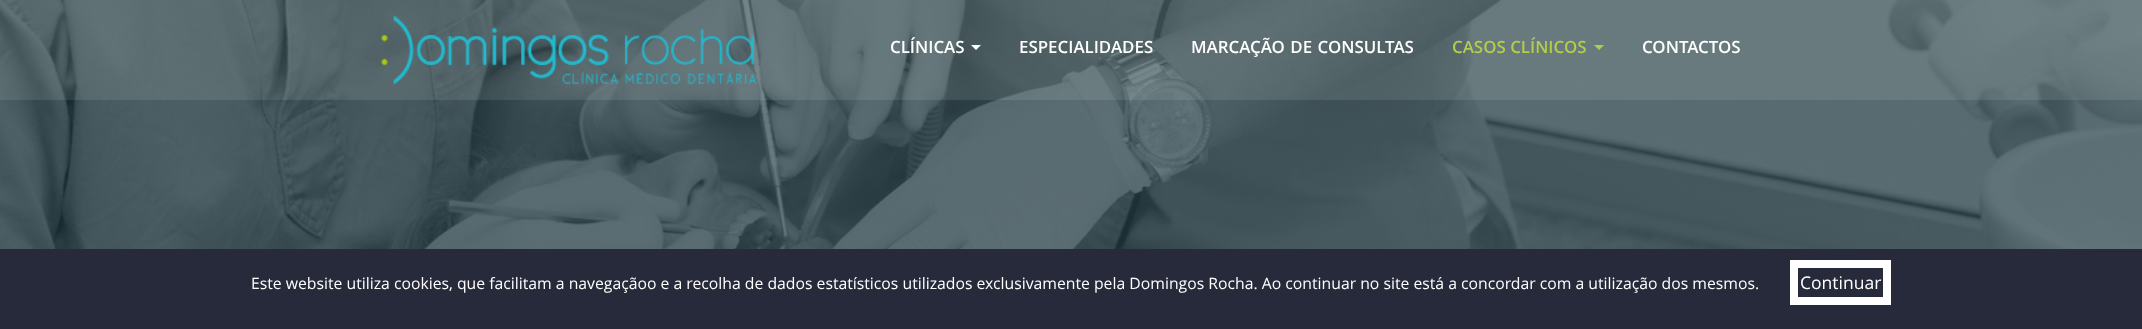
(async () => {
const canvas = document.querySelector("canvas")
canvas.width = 2142
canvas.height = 329
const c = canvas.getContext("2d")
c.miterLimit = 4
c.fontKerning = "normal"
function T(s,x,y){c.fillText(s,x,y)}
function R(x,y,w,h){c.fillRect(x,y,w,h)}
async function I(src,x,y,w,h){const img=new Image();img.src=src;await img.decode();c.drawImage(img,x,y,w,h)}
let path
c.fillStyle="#fff"
R(0,0,2142,329)
await I("1.png",0,0,2142,249)
c.fillStyle="#ffffff1a"
R(0,0,2142,100)
await I("2.png",381,15,376,70)
c.font="600 16.9px Open Sans"
c.fillStyle="#fff"
T("CLÍNICAS",890,53)
path = new Path2D("M971 45h10l-5 5z")
c.fill(path)
T("ESPECIALIDADES",1019,53)
c.wordSpacing="1px"
T("MARCAÇÃO DE CONSULTAS",1191,53)
c.wordSpacing="0px"
c.fillStyle="#b1cd49"
T("CASOS CLÍNICOS",1452,53)
path = new Path2D("M1594 45h10l-5 5z")
c.fill(path)
c.fillStyle="#fff"
T("CONTACTOS",1642,53)
c.fillStyle="#262a3b"
R(0,249,2142,80)
c.font="15.75px Open Sans"
c.fillStyle="#fff"
T("Este website utiliza cookies, que facilitam a navegaçãoo e a recolha de dados estatísticos utilizados exclusivamente pela Domingos Rocha. Ao continuar no site está a concordar com a utilização dos mesmos.",251,289)
c.strokeStyle="#fff"
c.lineWidth=8
c.strokeRect(1794,264,93,37)
c.font="17.5px Open Sans"
T("Continuar",1800,289)
})()
